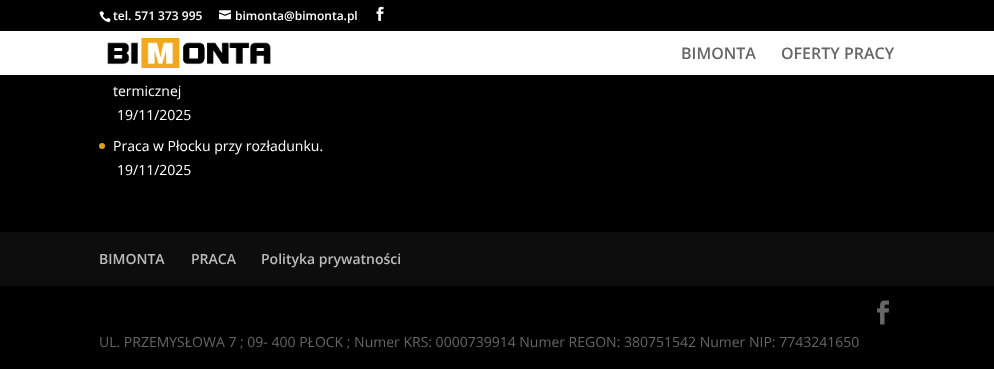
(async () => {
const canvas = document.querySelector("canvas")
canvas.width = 994
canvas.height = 369
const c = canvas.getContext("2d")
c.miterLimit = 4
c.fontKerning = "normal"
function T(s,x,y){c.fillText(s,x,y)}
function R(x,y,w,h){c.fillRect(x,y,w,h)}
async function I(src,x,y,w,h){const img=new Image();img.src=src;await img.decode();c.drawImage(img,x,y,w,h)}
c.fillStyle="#000"
R(0,0,994,369)
await I("1.png",99,11,12,12)
c.font="600 12px Open Sans"
c.fillStyle="#fff"
T("tel. 571 373 995",113,20)
await I("2.png",219,10,12,10)
T("bimonta@bimonta.pl",235,20)
await I("3.png",376,6,8,15)
R(0,31,994,44)
await I("4.png",107,38,164,30)
c.font="600 16px Open Sans"
c.fillStyle="#666"
T("BIMONTA",681,59)
T("OFERTY PRACY",781,59)
c.font="14px Open Sans"
c.fillStyle="#fff"
T("termicznej",113,96)
T("19/11/2025",117,120)
c.fillStyle="#e0a016"
c.beginPath()
c.arc(102,146,3,0,7)
c.fill()
c.fillStyle="#fff"
T("Praca w Płocku przy rozładunku.",113,151)
T("19/11/2025",117,175)
c.fillStyle="#0d0d0d"
R(0,232,994,54)
c.font="600 14px Open Sans"
c.fillStyle="#bbb"
T("BIMONTA",99,264)
T("PRACA",191,264)
T("Polityka prywatności",261,264)
await I("5.png",877,300,12,25)
c.font="14px Open Sans"
c.fillStyle="#666"
T("UL. PRZEMYSŁOWA 7 ; 09- 400 PŁOCK ; Numer KRS: 0000739914 Numer REGON: 380751542 Numer NIP: 7743241650",99,347)
})()
